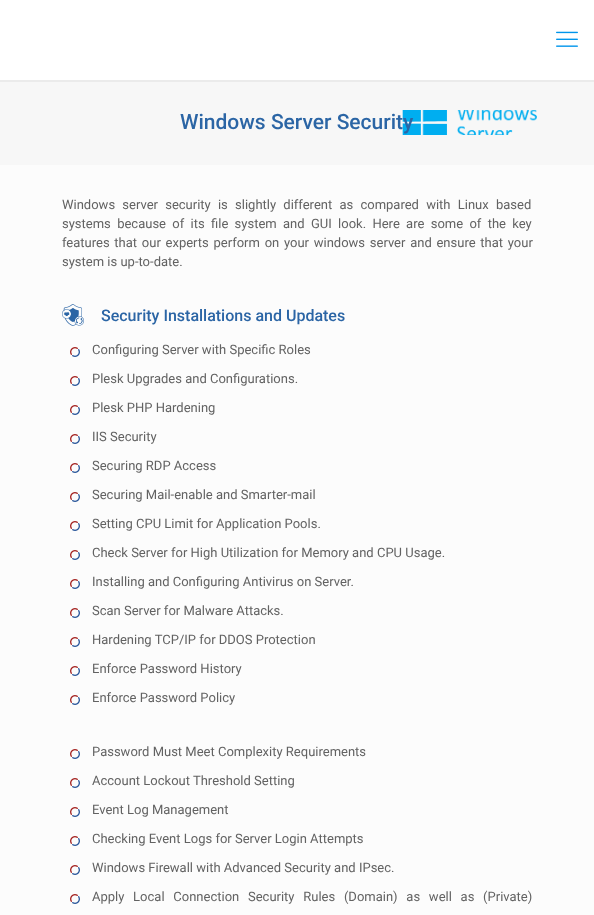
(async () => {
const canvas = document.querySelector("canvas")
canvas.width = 594
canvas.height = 915
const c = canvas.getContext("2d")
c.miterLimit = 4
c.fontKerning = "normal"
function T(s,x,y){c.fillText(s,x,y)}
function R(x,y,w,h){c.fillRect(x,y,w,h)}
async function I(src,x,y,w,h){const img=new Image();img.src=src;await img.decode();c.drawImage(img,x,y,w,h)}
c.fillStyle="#fcfcfc"
R(0,0,594,915)
c.fillStyle="#fff"
R(0,0,594,80)
c.fillStyle="#ebebeb"
R(0,80,594,2)
await I("1.png",556,31,22,16)
c.fillStyle="#f7f7f7"
R(0,82,594,83)
await I("2.png",402,110,135,25)
c.font="500 21px Roboto"
c.fillStyle="#2b65a5"
T("Windows Server Security",180,129)
c.wordSpacing="4px"
c.font="13px Roboto"
c.fillStyle="#626262"
T("Windows server security is slightly different as compared with Linux based",62,209)
c.wordSpacing="3.1px"
T("systems because of its file system and GUI look. Here are some of the key",62,228)
c.wordSpacing="1.5px"
T("features that our experts perform on your windows server and ensure that your",62,247)
c.wordSpacing="0px"
T("system is up-to-date.",62,266)
await I("3.png",62,304,22,22)
c.font="500 16px Roboto"
c.fillStyle="#2b65a5"
T("Security Installations and Updates",101,321)
await I("4.png",70,347,10,10)
c.font="13px Roboto"
c.fillStyle="#626262"
T("Configuring Server with Specific Roles",92,354)
await I("4.png",70,376,10,10)
T("Plesk Upgrades and Configurations.",92,383)
await I("4.png",70,405,10,10)
T("Plesk PHP Hardening",92,412)
await I("4.png",70,434,10,10)
T("IIS Security",92,441)
await I("4.png",70,463,10,10)
T("Securing RDP Access",92,470)
await I("4.png",70,492,10,10)
T("Securing Mail-enable and Smarter-mail",92,499)
await I("4.png",70,521,10,10)
T("Setting CPU Limit for Application Pools.",92,528)
await I("4.png",70,550,10,10)
T("Check Server for High Utilization for Memory and CPU Usage.",92,557)
await I("4.png",70,579,10,10)
T("Installing and Configuring Antivirus on Server.",92,586)
await I("4.png",70,608,10,10)
T("Scan Server for Malware Attacks.",92,615)
await I("4.png",70,637,10,10)
T("Hardening TCP/IP for DDOS Protection",92,644)
await I("4.png",70,666,10,10)
T("Enforce Password History",92,673)
await I("4.png",70,695,10,10)
T("Enforce Password Policy",92,702)
await I("4.png",70,749,10,10)
T("Password Must Meet Complexity Requirements",92,756)
await I("4.png",70,778,10,10)
T("Account Lockout Threshold Setting",92,785)
await I("4.png",70,807,10,10)
T("Event Log Management",92,814)
await I("4.png",70,836,10,10)
T("Checking Event Logs for Server Login Attempts",92,843)
await I("4.png",70,865,10,10)
T("Windows Firewall with Advanced Security and IPsec.",92,872)
await I("4.png",70,894,10,10)
c.wordSpacing="5.5px"
T("Apply Local Connection Security Rules (Domain) as well as (Private)",92,901)
})()
